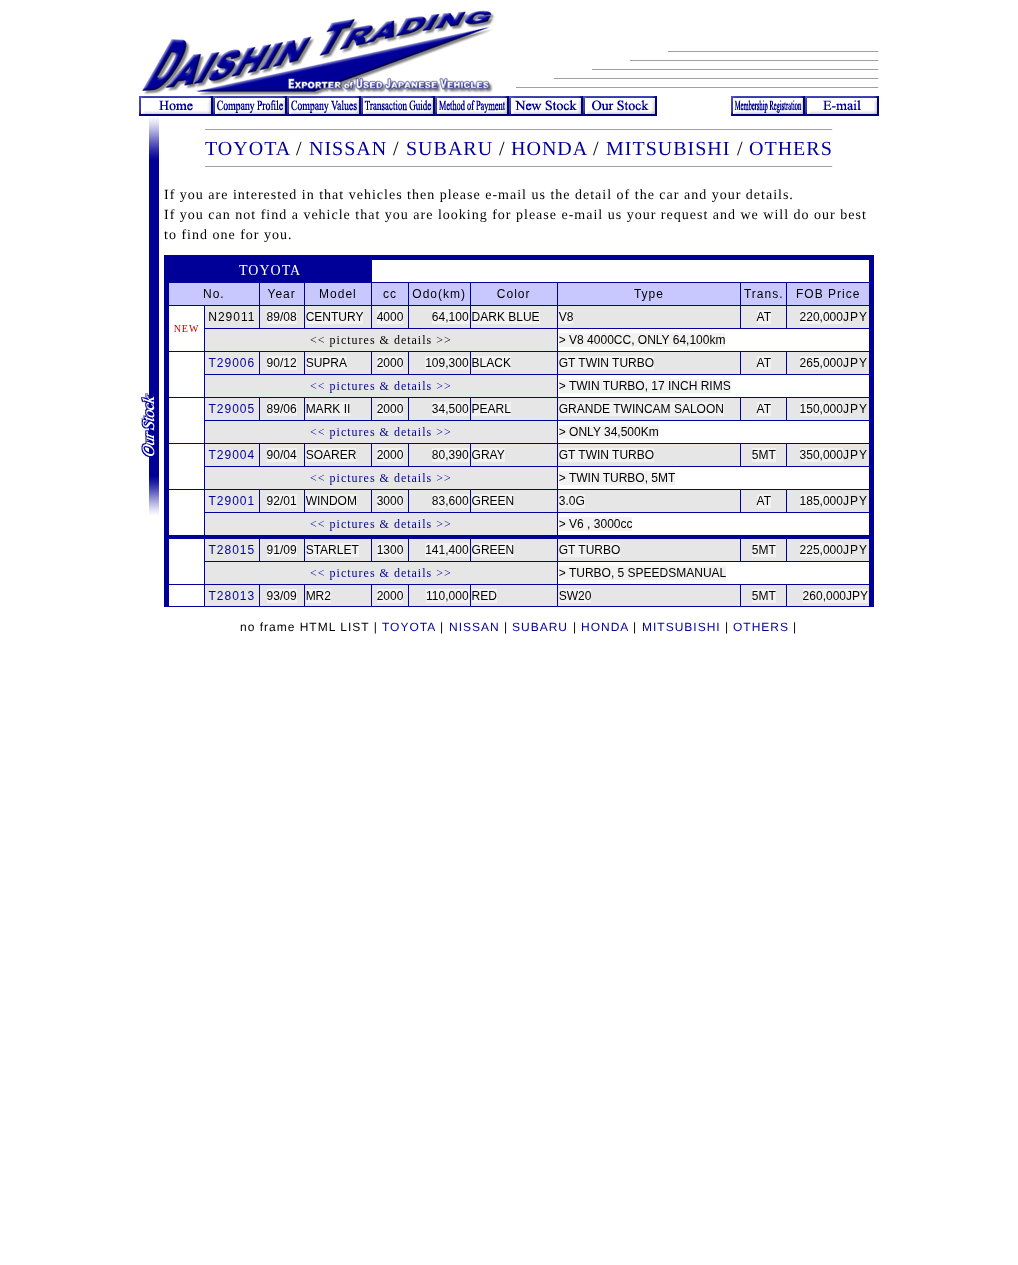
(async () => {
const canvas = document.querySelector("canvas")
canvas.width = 1018
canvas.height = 1265
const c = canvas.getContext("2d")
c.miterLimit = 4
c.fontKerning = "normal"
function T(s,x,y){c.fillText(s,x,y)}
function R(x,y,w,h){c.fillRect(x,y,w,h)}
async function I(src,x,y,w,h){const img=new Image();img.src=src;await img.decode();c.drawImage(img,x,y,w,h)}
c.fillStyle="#fff"
R(0,0,1018,1265)
await I("1.png",142,10,353,86)
c.fillStyle="#9f9f9f"
R(668,51,211,1)
c.fillStyle="#eee"
R(878,51,1,1)
c.fillStyle="#9f9f9f"
R(630,60,249,1)
c.fillStyle="#eee"
R(878,60,1,1)
c.fillStyle="#9f9f9f"
R(592,69,287,1)
c.fillStyle="#eee"
R(878,69,1,1)
c.fillStyle="#9f9f9f"
R(554,78,325,1)
c.fillStyle="#eee"
R(878,78,1,1)
c.fillStyle="#9f9f9f"
R(516,87,363,1)
c.fillStyle="#eee"
R(878,87,1,1)
await I("2.png",139,96,74,20)
await I("3.png",213,96,74,20)
await I("4.png",287,96,74,20)
await I("5.png",361,96,74,20)
await I("6.png",435,96,74,20)
await I("7.png",509,96,74,20)
await I("8.png",583,96,74,20)
await I("9.png",731,96,74,20)
await I("10.png",805,96,74,20)
await I("11.png",141,117,18,398)
c.fillStyle="#9f9f9f"
R(205,129,628,1)
c.fillStyle="#eee"
R(832,129,1,1)
c.letterSpacing="1px"
c.font="20px Liberation Serif"
c.fillStyle="#009"
T("TOYOTA",205,155)
c.fillStyle="#000"
T("/",296,155)
c.fillStyle="#009"
T("NISSAN",309,155)
c.fillStyle="#000"
T("/",393,155)
c.fillStyle="#009"
T("SUBARU",406,155)
c.fillStyle="#000"
T("/",499,155)
c.fillStyle="#009"
T("HONDA",511,155)
c.fillStyle="#000"
T("/",593,155)
c.fillStyle="#009"
T("MITSUBISHI",606,155)
c.fillStyle="#000"
T("/",737,155)
c.fillStyle="#009"
T("OTHERS",749,155)
c.fillStyle="#9f9f9f"
R(205,166,628,1)
c.fillStyle="#eee"
R(832,166,1,1)
c.font="14px Liberation Serif"
c.fillStyle="#000"
T("If you are interested in that vehicles then please e-mail us the detail of the car and your details.",164,199)
T("If you can not find a vehicle that you are looking for please e-mail us your request and we will do our best",164,219)
T("to find one for you.",164,239)
c.fillStyle="#009"
R(164,255,710,352)
await I("12.png",169,260,700,346)
c.font="12px Liberation Sans"
c.fillStyle="#000"
T("no frame HTML LIST |",240,631)
c.fillStyle="#009"
T("TOYOTA",382,631)
c.fillStyle="#000"
T("|",440,631)
c.fillStyle="#009"
T("NISSAN",449,631)
c.fillStyle="#000"
T("|",504,631)
c.fillStyle="#009"
T("SUBARU",512,631)
c.fillStyle="#000"
T("|",573,631)
c.fillStyle="#009"
T("HONDA",581,631)
c.fillStyle="#000"
T("|",633,631)
c.fillStyle="#009"
T("MITSUBISHI",642,631)
c.fillStyle="#000"
T("|",725,631)
c.fillStyle="#009"
T("OTHERS",733,631)
c.fillStyle="#000"
T("|",793,631)
})()
